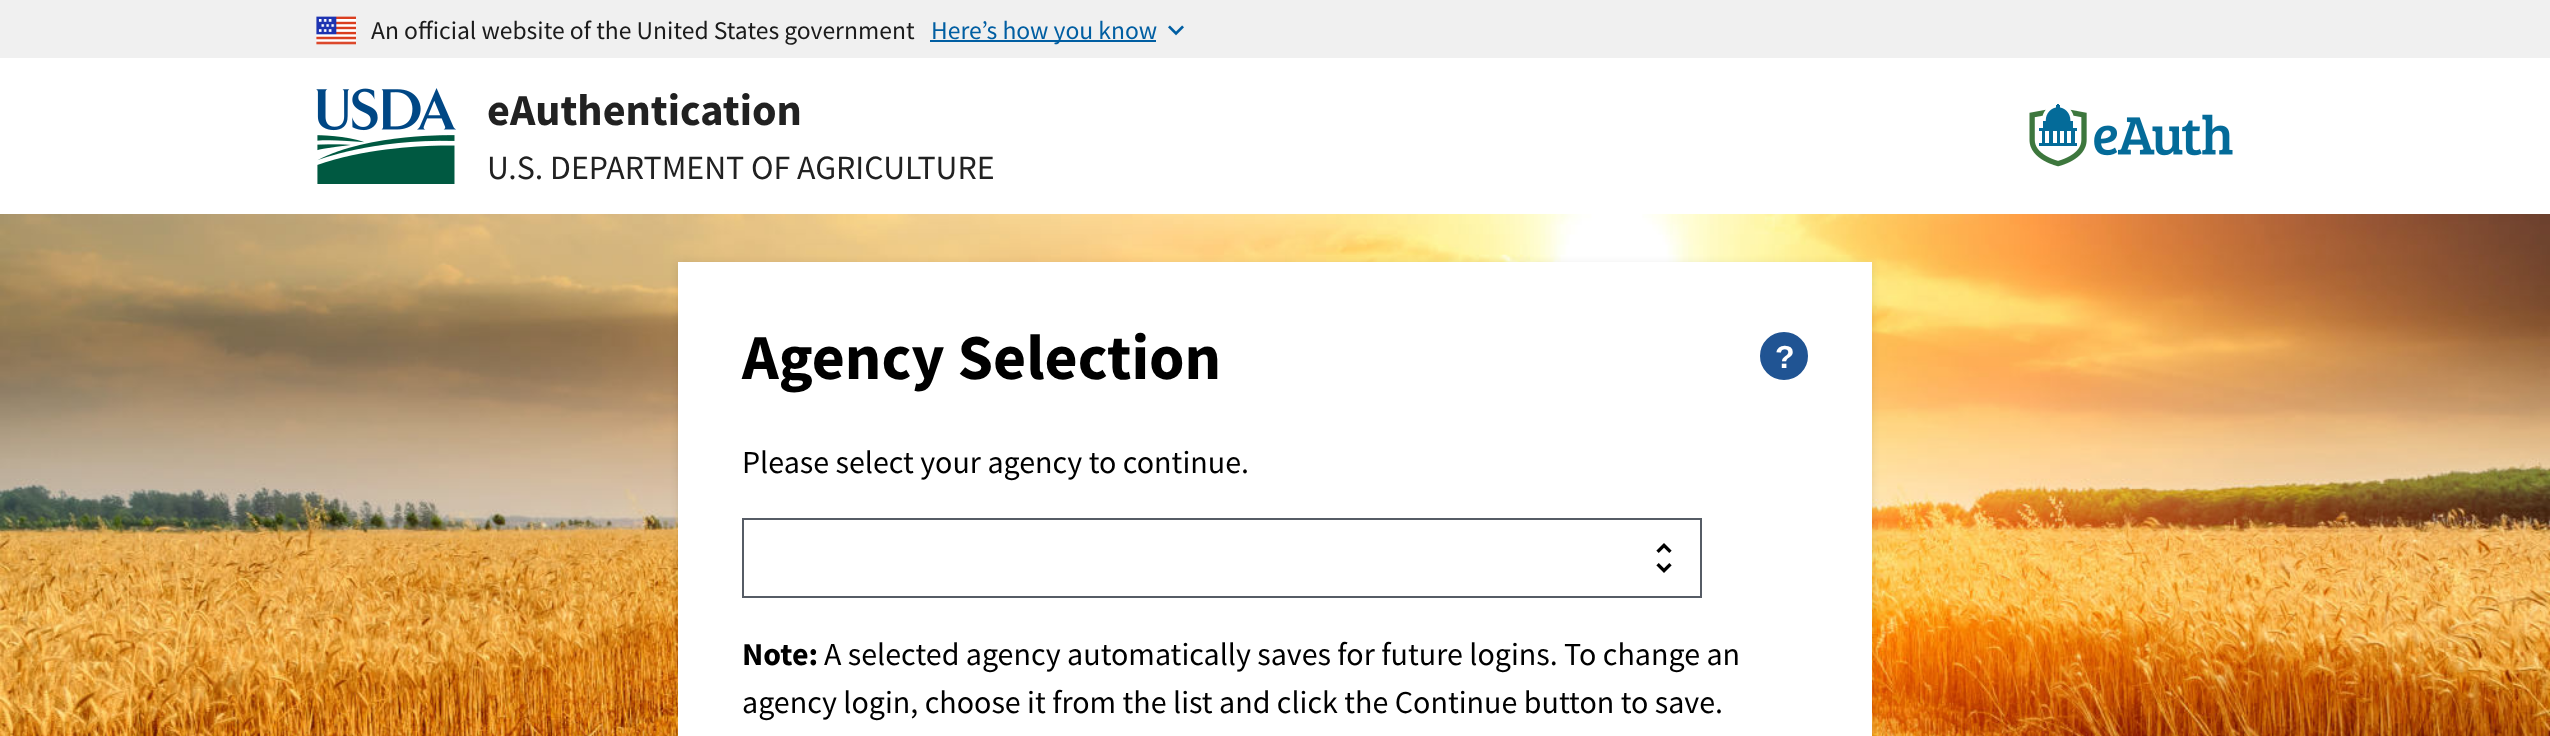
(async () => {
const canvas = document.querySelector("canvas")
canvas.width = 2550
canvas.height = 736
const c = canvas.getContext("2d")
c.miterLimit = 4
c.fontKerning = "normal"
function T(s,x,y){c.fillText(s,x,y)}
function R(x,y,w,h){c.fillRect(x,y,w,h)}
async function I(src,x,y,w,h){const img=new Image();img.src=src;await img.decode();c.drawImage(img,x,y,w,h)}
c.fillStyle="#fff"
R(0,0,2550,736)
c.fillStyle="#f0f0f0"
R(0,0,2550,58)
await I("1.png",316,16,40,29)
c.font="25.6px Source Sans Pro"
c.fillStyle="#1b1b1b"
T("An official website of the United States government",371,39)
c.fillStyle="#005ea2"
R(930,40,226,2)
T("Here’s how you know",931,39)
await I("2.png",1168,25,16,11)
await I("3.png",316,88,140,96)
c.font="bold 44.25px Source Sans Pro"
c.fillStyle="#212121"
T("eAuthentication",487,125)
c.font="33.9px Source Sans Pro"
T("U.S. DEPARTMENT OF AGRICULTURE",487,179)
await I("4.png",2029,104,204,63)
await I("5.png",0,214,2550,522)
c.fillStyle="#0000001a"
c.filter="blur(4px)"
c.beginPath()
c.rect(678,264,1194,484)
c.fill()
c.filter="none"
c.fillStyle="#fff"
R(678,262,1194,474)
c.font="bold 64px Source Sans Pro"
c.fillStyle="#000"
T("Agency Selection",742,379)
c.fillStyle="#205493"
c.beginPath()
c.arc(1784,356,22,0,7)
c.fill()
c.strokeStyle="#205493"
c.lineWidth=4
c.stroke()
c.font="bold 32px Liberation Sans"
c.fillStyle="#fff"
T("?",1775,368)
c.font="32px Source Sans Pro"
c.fillStyle="#000"
T("Please select your agency to continue.",742,473)
await I("6.png",1656,543,16,30)
c.strokeStyle="#565c65"
c.lineWidth=2
c.strokeRect(743,519,958,78)
c.font="bold 32px Source Sans Pro"
T("Note:",742,665)
c.font="32px Source Sans Pro"
T("A selected agency automatically saves for future logins. To change an",824,665)
T("agency login, choose it from the list and click the Continue button to save.",742,713)
})()
